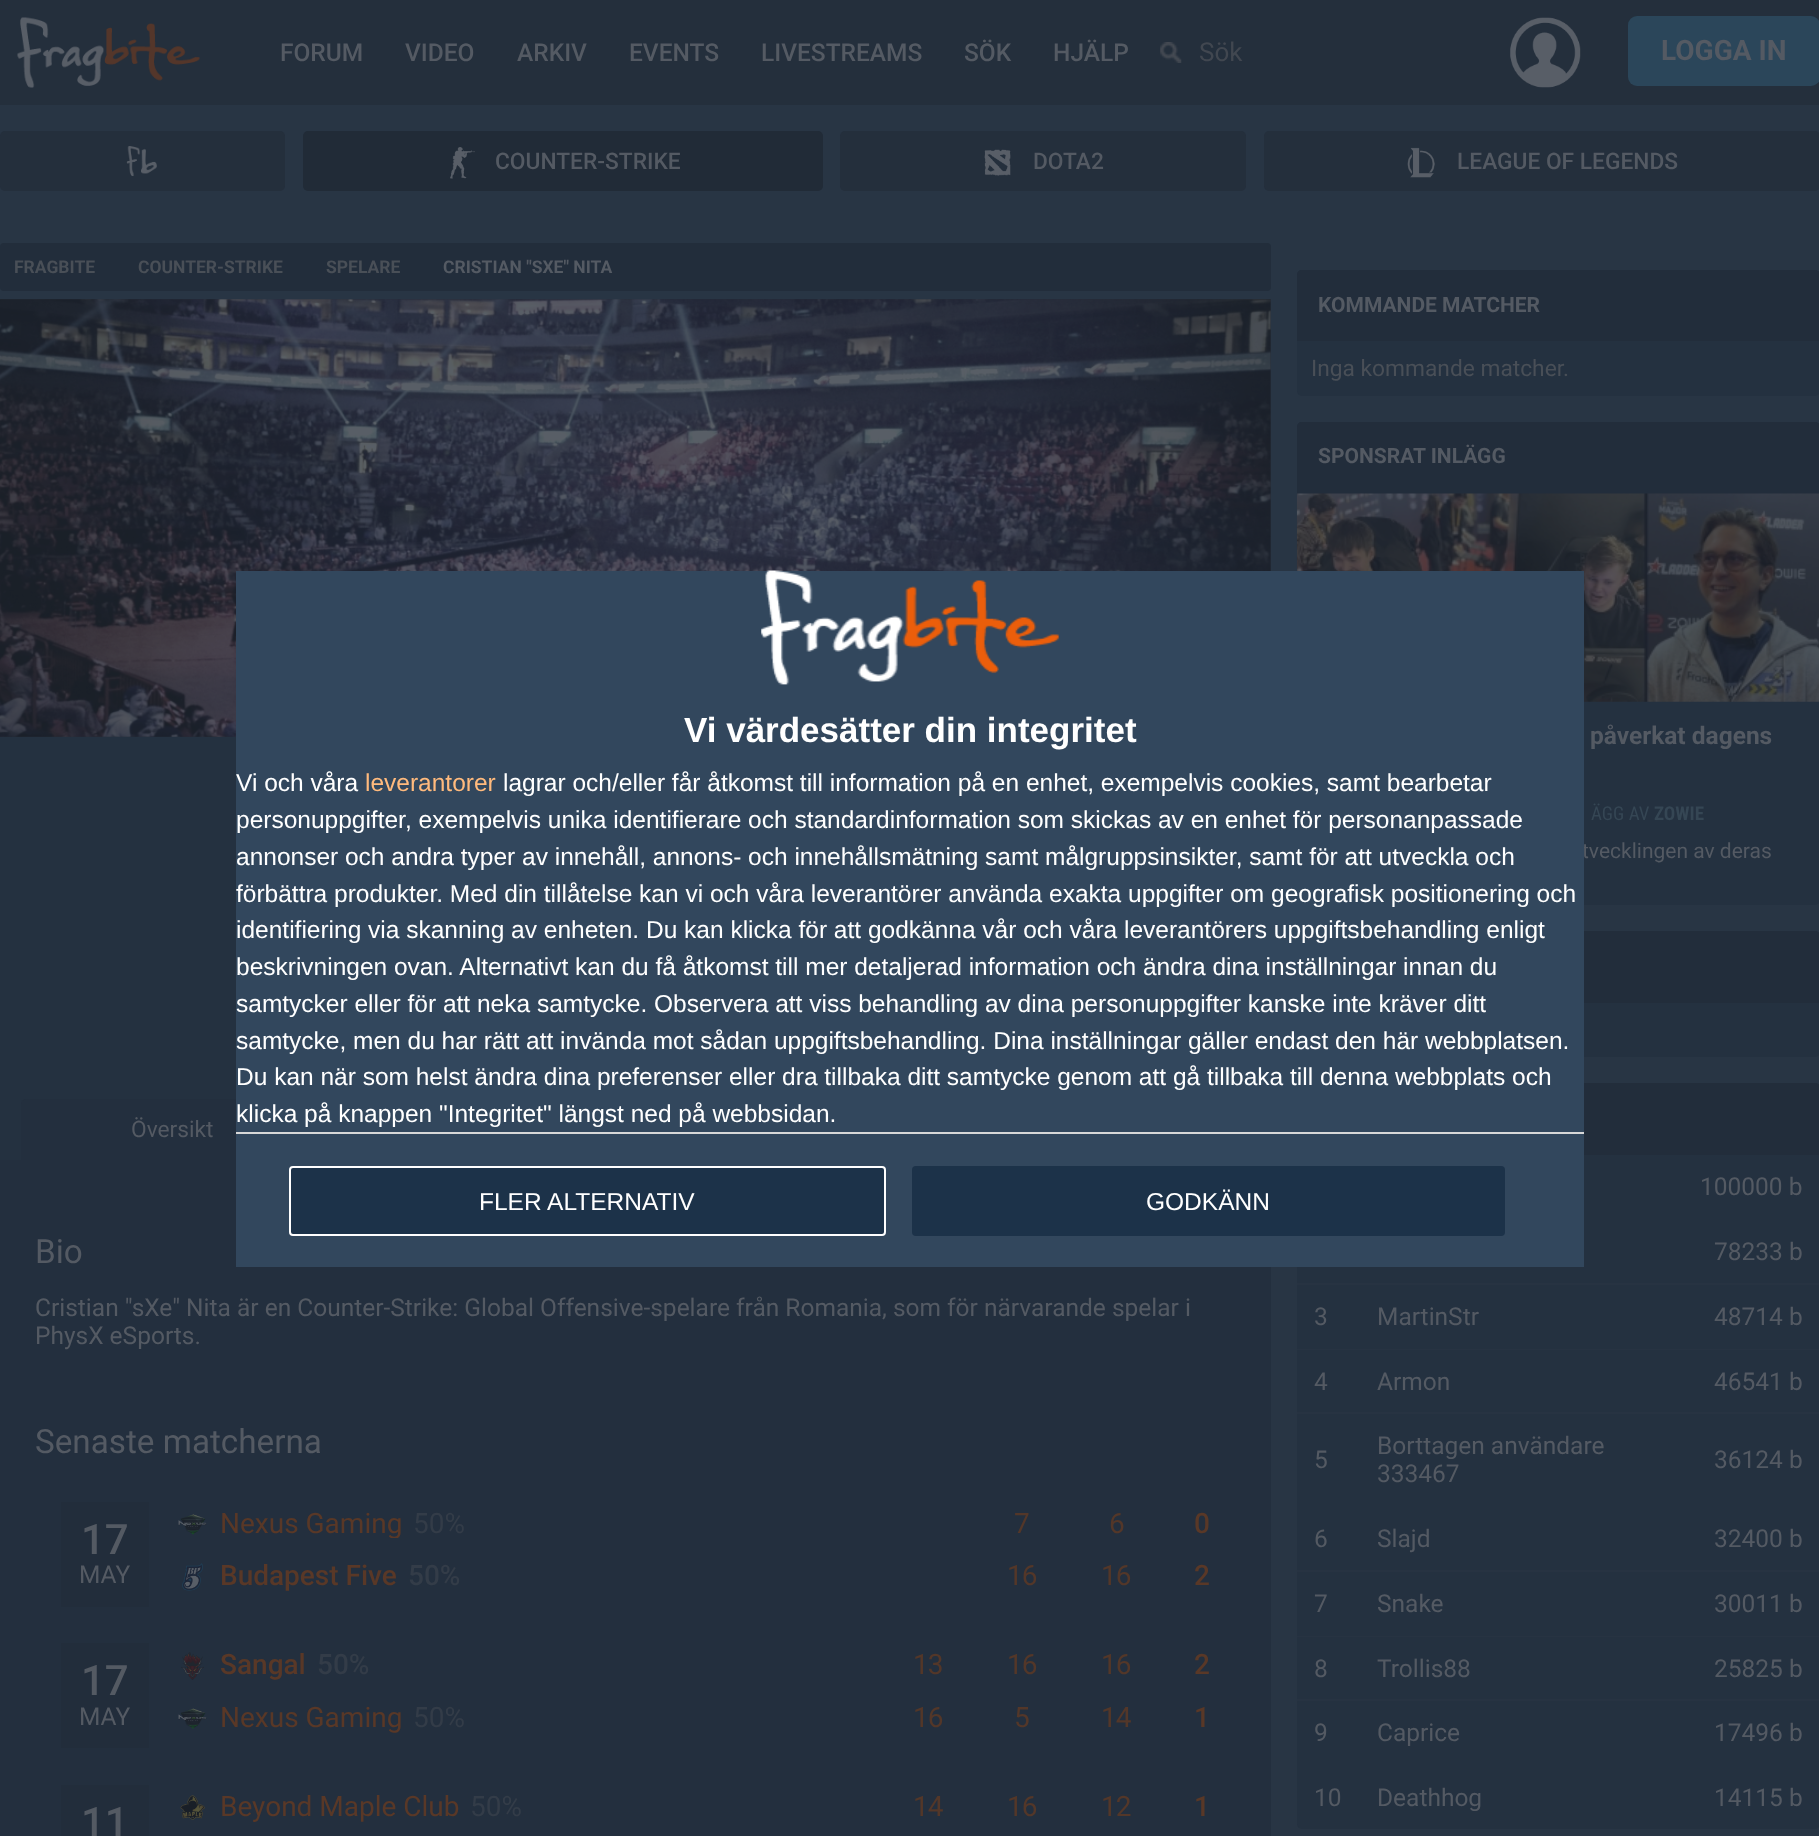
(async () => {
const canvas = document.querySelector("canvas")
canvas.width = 1819
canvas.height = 1836
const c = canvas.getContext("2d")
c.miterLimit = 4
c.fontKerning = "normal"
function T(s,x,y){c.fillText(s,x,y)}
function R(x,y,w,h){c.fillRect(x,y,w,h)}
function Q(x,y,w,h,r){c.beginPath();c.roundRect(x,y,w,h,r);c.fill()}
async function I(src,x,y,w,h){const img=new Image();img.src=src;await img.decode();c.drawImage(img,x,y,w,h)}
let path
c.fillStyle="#283544"
R(0,0,1819,1836)
c.fillStyle="#242f3c"
R(0,0,1819,105)
await I("1.png",17,17,183,71)
c.font="500 24.5px Roboto"
c.fillStyle="#545a63"
T("FORUM",280,61)
T("VIDEO",405,61)
T("ARKIV",517,61)
T("EVENTS",629,61)
T("LIVESTREAMS",761,61)
T("SÖK",964,61)
T("HJÄLP",1053,61)
await I("2.png",1160,42,22,21)
c.font="26px Roboto"
c.fillStyle="#414750"
T("Sök",1199,61)
await I("3.png",1510,17,71,71)
c.fillStyle="#2b465a"
Q(1628,16,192,70,9)
c.font="bold 28px Roboto"
c.fillStyle="#545a63"
T("LOGGA IN",1661,60)
c.fillStyle="#242f3c"
Q(0,131,285,60,5)
await I("4.png",126,146,31,31)
c.fillStyle="#212b37"
Q(303,131,520,60,5)
await I("5.png",450,147,25,32)
c.font="500 22.75px Roboto"
c.fillStyle="#545a63"
T("COUNTER-STRIKE",495,169)
c.fillStyle="#242f3c"
Q(840,131,406,60,5)
await I("6.png",984,149,27,27)
c.fillStyle="#545a63"
T("DOTA2",1033,169)
c.fillStyle="#242f3c"
Q(1264,131,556,60,5)
await I("7.png",1407,147,28,31)
c.fillStyle="#545a63"
T("LEAGUE OF LEGENDS",1457,169)
c.fillStyle="#222d3b"
Q(0,243,1271,48,4)
c.font="bold 17.5px Roboto"
c.fillStyle="#494f57"
T("FRAGBITE",14,273)
T("COUNTER-STRIKE",138,273)
T("SPELARE",326,273)
c.fillStyle="#545a63"
T("CRISTIAN \"SXE\" NITA",443,273)
c.fillStyle="#243140"
R(0,737,236,423)
c.fillStyle="#242d38"
R(0,299,1271,438)
await I("8.png",0,299,1271,438)
c.fillStyle="#232f3e"
c.beginPath()
c.roundRect(21,1099,301,61,[5,5,0,0])
c.fill()
c.font="22.75px Roboto"
c.fillStyle="#545a63"
T("Översikt",131,1137)
c.fillStyle="#232f3e"
R(0,1160,1271,676)
c.font="33.25px Roboto"
c.fillStyle="#545a63"
T("Bio",35,1263)
c.font="24.5px Roboto"
T("Cristian \"sXe\" Nita är en Counter-Strike: Global Offensive-spelare från Romania, som för närvarande spelar i",35,1316)
T("PhysX eSports.",35,1344)
c.font="33.25px Roboto"
T("Senaste matcherna",35,1453)
c.fillStyle="#222d3b"
R(61,1502,88,105)
c.font="500 42px Roboto"
c.fillStyle="#545a63"
T("17",81,1554)
c.font="24.5px Roboto"
T("MAY",79,1583)
await I("9.png",178,1514,29,21)
c.save()
c.beginPath()
c.rect(175,1510,725,28)
c.clip()
c.font="28px Roboto"
c.fillStyle="#593827"
T("Nexus Gaming",220,1533)
c.restore()
c.font="28px Roboto"
c.fillStyle="#333c48"
T("50%",413,1533)
c.letterSpacing="-1px"
c.fillStyle="#533729"
T("7",1014,1533)
T("6",1109,1533)
c.font="500 28px Roboto"
c.fillStyle="#593827"
T("0",1194,1533)
await I("10.png",182,1563,21,28)
c.letterSpacing="0px"
T("Budapest Five",220,1585)
c.fillStyle="#333c48"
T("50%",408,1585)
c.letterSpacing="-1px"
c.font="28px Roboto"
c.fillStyle="#533729"
T("16",1007,1585)
T("16",1101,1585)
c.font="500 28px Roboto"
c.fillStyle="#593827"
T("2",1194,1585)
c.fillStyle="#222d3b"
R(61,1643,88,105)
c.letterSpacing="0px"
c.font="500 42px Roboto"
c.fillStyle="#545a63"
T("17",81,1695)
c.font="24.5px Roboto"
T("MAY",79,1725)
await I("11.png",181,1652,23,28)
c.font="500 28px Roboto"
c.fillStyle="#593827"
T("Sangal",220,1674)
c.fillStyle="#333c48"
T("50%",317,1674)
c.letterSpacing="-1px"
c.font="28px Roboto"
c.fillStyle="#533729"
T("13",913,1674)
T("16",1007,1674)
T("16",1101,1674)
c.font="500 28px Roboto"
c.fillStyle="#593827"
T("2",1194,1674)
await I("12.png",178,1708,29,21)
c.letterSpacing="0px"
c.font="28px Roboto"
T("Nexus Gaming",220,1727)
c.fillStyle="#333c48"
T("50%",413,1727)
c.letterSpacing="-1px"
c.fillStyle="#533729"
T("16",913,1727)
T("5",1014,1727)
T("14",1101,1727)
c.font="500 28px Roboto"
c.fillStyle="#593827"
T("1",1194,1727)
c.fillStyle="#222d3b"
R(61,1785,88,51)
c.letterSpacing="0px"
c.font="500 42px Roboto"
c.fillStyle="#545a63"
T("11",81,1837)
await I("13.png",180,1795,25,25)
c.font="28px Roboto"
c.fillStyle="#593827"
T("Beyond Maple Club",220,1816)
c.fillStyle="#333c48"
T("50%",470,1816)
c.letterSpacing="-1px"
c.fillStyle="#533729"
T("14",913,1816)
T("16",1007,1816)
T("12",1101,1816)
c.font="500 28px Roboto"
c.fillStyle="#593827"
T("1",1194,1816)
c.fillStyle="#243140"
Q(1297,270,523,126,5)
c.fillStyle="#222d3b"
path = new Path2D("M1302 270h513c3 0 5 2 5 5v66h-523v-66c0-3 2-5 5-5z")
c.fill(path)
c.letterSpacing="0px"
c.font="bold 21px Roboto"
c.fillStyle="#545a63"
T("KOMMANDE MATCHER",1318,312)
c.font="22.75px Roboto"
c.fillStyle="#494f57"
T("Inga kommande matcher.",1311,376)
c.fillStyle="#243140"
Q(1297,422,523,483,5)
c.fillStyle="#222d3b"
path = new Path2D("M1302 422h513c3 0 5 2 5 5v67h-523v-67c0-3 2-5 5-5z")
c.fill(path)
c.font="bold 21px Roboto"
c.fillStyle="#545a63"
T("SPONSRAT INLÄGG",1318,463)
await I("14.png",1296,493,523,209)
c.font="bold 24.5px Roboto"
T("påverkat dagens",1590,744)
c.font="19px Roboto Condensed"
c.fillStyle="#354654"
T("ÄGG AV",1591,820)
c.font="bold 19px Roboto Condensed"
T("ZOWIE",1654,820)
c.font="21px Roboto"
c.fillStyle="#545a63"
T("tvecklingen av deras",1582,858)
c.fillStyle="#243140"
Q(1297,931,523,126,5)
c.fillStyle="#222d3b"
path = new Path2D("M1302 931h513c3 0 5 2 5 5v67h-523v-67c0-3 2-5 5-5z")
c.fill(path)
c.fillStyle="#243140"
Q(1297,1083,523,746,5)
c.fillStyle="#222d3b"
path = new Path2D("M1302 1083h513c3 0 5 2 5 5v67h-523v-67c0-3 2-5 5-5z")
c.fill(path)
c.font="24.5px Roboto"
c.fillStyle="#545a63"
T("100000 b",1700,1195)
c.fillStyle="#273342"
R(1297,1283,522,2)
c.fillStyle="#545a63"
T("78233 b",1714,1260)
T("3",1314,1325)
T("MartinStr",1377,1325)
T("48714 b",1714,1325)
c.fillStyle="#273342"
R(1297,1349,522,1)
R(1297,1412,522,2)
c.fillStyle="#545a63"
T("4",1314,1390)
T("Armon",1377,1390)
T("46541 b",1714,1390)
T("5",1314,1468)
T("Borttagen användare",1377,1454)
T("333467",1377,1482)
T("36124 b",1714,1468)
c.fillStyle="#273342"
R(1297,1570,522,2)
c.fillStyle="#545a63"
T("6",1314,1547)
T("Slajd",1377,1547)
T("32400 b",1714,1547)
T("7",1314,1612)
T("Snake",1377,1612)
T("30011 b",1714,1612)
c.fillStyle="#273342"
R(1297,1636,522,1)
R(1297,1699,522,2)
c.fillStyle="#545a63"
T("8",1314,1677)
T("Trollis88",1377,1677)
T("25825 b",1714,1677)
T("9",1314,1741)
T("Caprice",1377,1741)
T("17496 b",1714,1741)
T("10",1314,1806)
T("Deathhog",1377,1806)
T("14115 b",1714,1806)
c.fillStyle="#32475d"
R(236,571,1348,696)
await I("15.png",761,570,298,115)
c.font="bold 35px Liberation Sans"
c.fillStyle="#fff"
T("Vi värdesätter din integritet",684,742)
c.font="24.5px Liberation Sans"
T("Vi och våra",236,791)
c.fillStyle="#ffba7d"
T("leverantorer",365,791)
c.fillStyle="#fff"
T("lagrar och/eller får åtkomst till information på en enhet, exempelvis cookies, samt bearbetar",503,791)
T("personuppgifter, exempelvis unika identifierare och standardinformation som skickas av en enhet för personanpassade",236,828)
T("annonser och andra typer av innehåll, annons- och innehållsmätning samt målgruppsinsikter, samt för att utveckla och",236,865)
T("förbättra produkter. Med din tillåtelse kan vi och våra leverantörer använda exakta uppgifter om geografisk positionering och",236,902)
T("identifiering via skanning av enheten. Du kan klicka för att godkänna vår och våra leverantörers uppgiftsbehandling enligt",236,938)
T("beskrivningen ovan. Alternativt kan du få åtkomst till mer detaljerad information och ändra dina inställningar innan du",236,975)
T("samtycker eller för att neka samtycke. Observera att viss behandling av dina personuppgifter kanske inte kräver ditt",236,1012)
T("samtycke, men du har rätt att invända mot sådan uppgiftsbehandling. Dina inställningar gäller endast den här webbplatsen.",236,1049)
T("Du kan när som helst ändra dina preferenser eller dra tillbaka ditt samtycke genom att gå tillbaka till denna webbplats och",236,1085)
T("klicka på knappen \"Integritet\" längst ned på webbsidan.",236,1122)
c.fillStyle="#d8d8d8"
R(236,1132,1348,2)
c.fillStyle="#1c3249"
c.beginPath()
c.roundRect(290,1167,595,68,3)
c.fill()
c.strokeStyle="#fff"
c.lineWidth=2
c.stroke()
c.fillStyle="#fff"
T("FLER ALTERNATIV",479,1210)
c.fillStyle="#1c3249"
Q(912,1166,593,70,4)
c.fillStyle="#fff"
T("GODKÄNN",1146,1210)
})()
